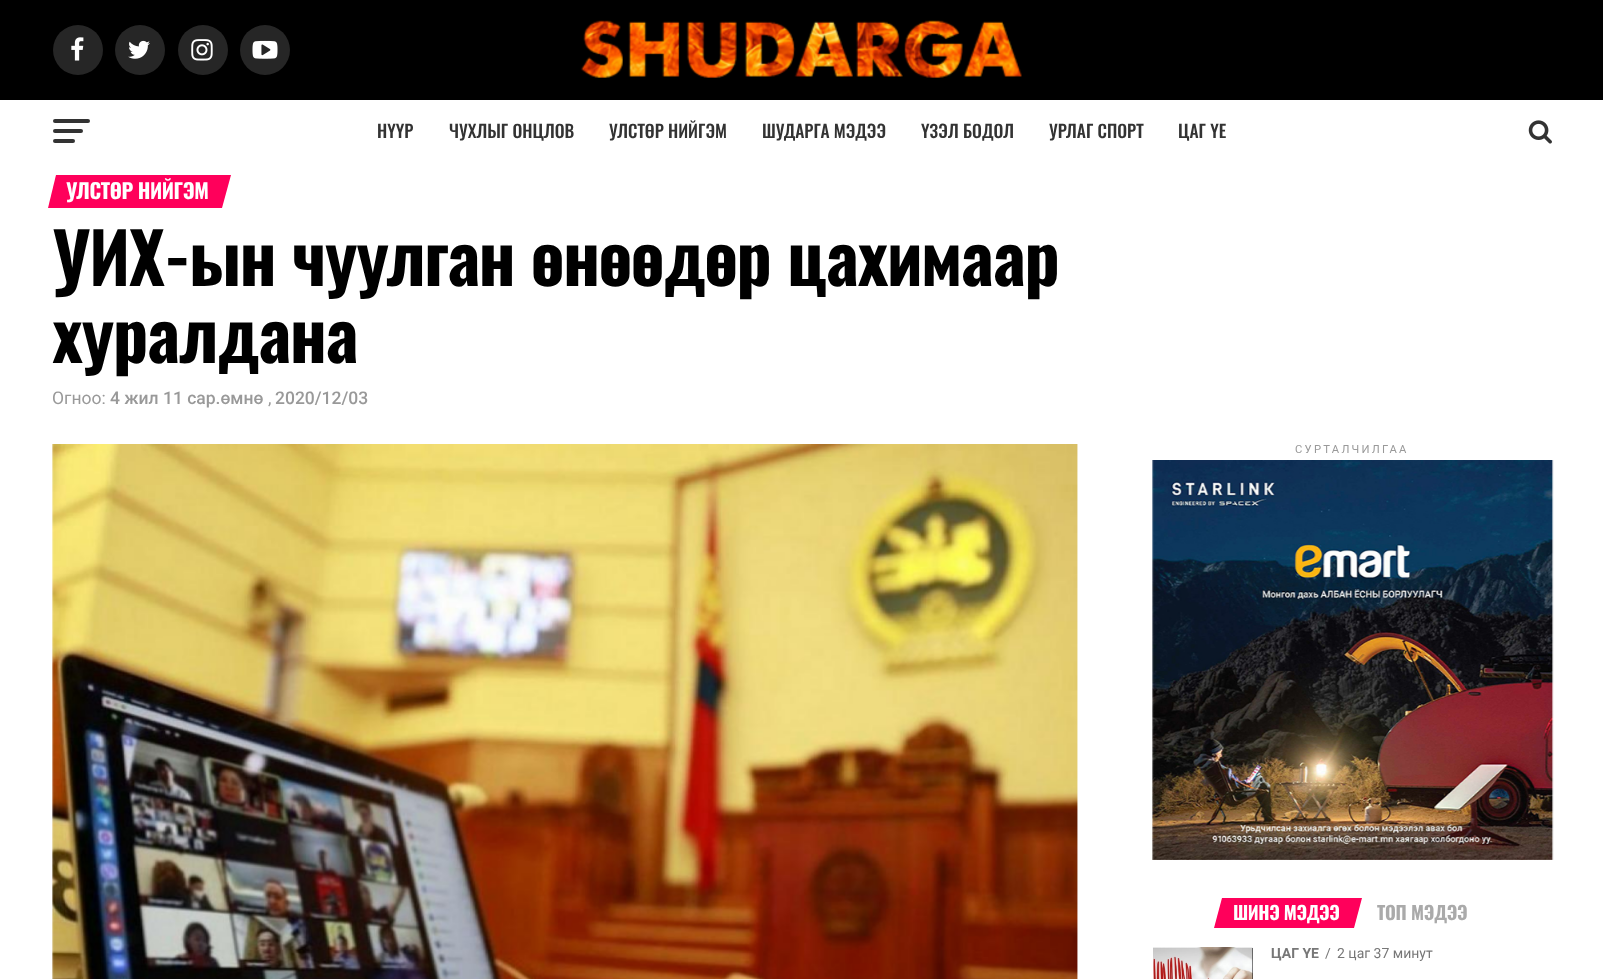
(async () => {
const canvas = document.querySelector("canvas")
canvas.width = 1603
canvas.height = 979
const c = canvas.getContext("2d")
c.miterLimit = 4
c.fontKerning = "normal"
function T(s,x,y){c.fillText(s,x,y)}
function R(x,y,w,h){c.fillRect(x,y,w,h)}
function Q(x,y,w,h,r){c.beginPath();c.roundRect(x,y,w,h,r);c.fill()}
async function I(src,x,y,w,h){const img=new Image();img.src=src;await img.decode();c.drawImage(img,x,y,w,h)}
let path
c.fillStyle="#fff"
R(0,0,1603,979)
c.fillStyle="#000"
R(0,0,1603,100)
c.fillStyle="#262626"
c.beginPath()
c.arc(78,50,25,0,7)
c.fill()
await I("1.png",71,37,13,24)
c.beginPath()
c.arc(140,50,25,0,7)
c.fill()
await I("2.png",128,40,22,19)
c.beginPath()
c.arc(203,50,25,0,7)
c.fill()
await I("3.png",191,39,22,22)
c.beginPath()
c.arc(265,50,25,0,7)
c.fill()
await I("4.png",252,40,26,19)
await I("5.png",580,20,442,58)
c.fillStyle="#333"
Q(53,119,37,4,2)
Q(53,129,30,4,2)
Q(53,139,22,4,2)
c.font="500 17.5px Oswald"
T("НҮҮР",377,138)
T("ЧУХЛЫГ ОНЦЛОВ",449,138)
T("УЛСТӨР НИЙГЭМ",609,138)
T("ШУДАРГА МЭДЭЭ",762,138)
T("ҮЗЭЛ БОДОЛ",921,138)
T("УРЛАГ СПОРТ",1049,138)
T("ЦАГ ҮЕ",1178,138)
await I("6.png",1528,120,24,24)
c.fillStyle="#ff005b"
path = new Path2D("M56 175h175l-9 33h-174z")
c.fill(path)
c.letterSpacing="-0.4px"
c.font="bold 20.75px Oswald"
c.fillStyle="#fff"
T("УЛСТӨР НИЙГЭМ",66,199)
c.letterSpacing="-1.4px"
c.font="bold 70px Oswald"
c.fillStyle="#000"
T("УИХ-ын чуулган өнөөдөр цахимаар",52,286)
T("хуралдана",52,363)
c.letterSpacing="0px"
c.font="17.5px Roboto"
c.fillStyle="#999"
T("Огноо:",52,404)
c.font="500 17.5px Roboto"
T("4 жил 11 сар.өмнө",110,404)
c.font="17.5px Roboto"
T(",",268,404)
c.font="500 17.5px Roboto"
T("2020/12/03",275,404)
await I("7.png",52,444,1026,535)
c.letterSpacing="2.25px"
c.font="11.25px Roboto"
T("СУРТАЛЧИЛГАА",1295,453)
await I("8.png",1152,460,402,400)
c.fillStyle="#ff005b"
path = new Path2D("M1222 898h140l-8 30h-140z")
c.fill(path)
c.letterSpacing="-0.4px"
c.font="bold 18.5px Oswald"
c.fillStyle="#fff"
T("ШИНЭ МЭДЭЭ",1233,920)
c.letterSpacing="-0.25px"
c.fillStyle="#aaa"
T("ТОП МЭДЭЭ",1377,920)
c.fillStyle="#000"
R(1252,948,1,31)
await I("9.png",1153,947,100,32)
c.letterSpacing="0px"
c.font="bold 14px Roboto"
c.fillStyle="#777"
T("ЦАГ ҮЕ",1271,958)
c.font="14px Roboto"
T("/",1325,958)
T("2 цаг 37 минут",1337,958)
})()
